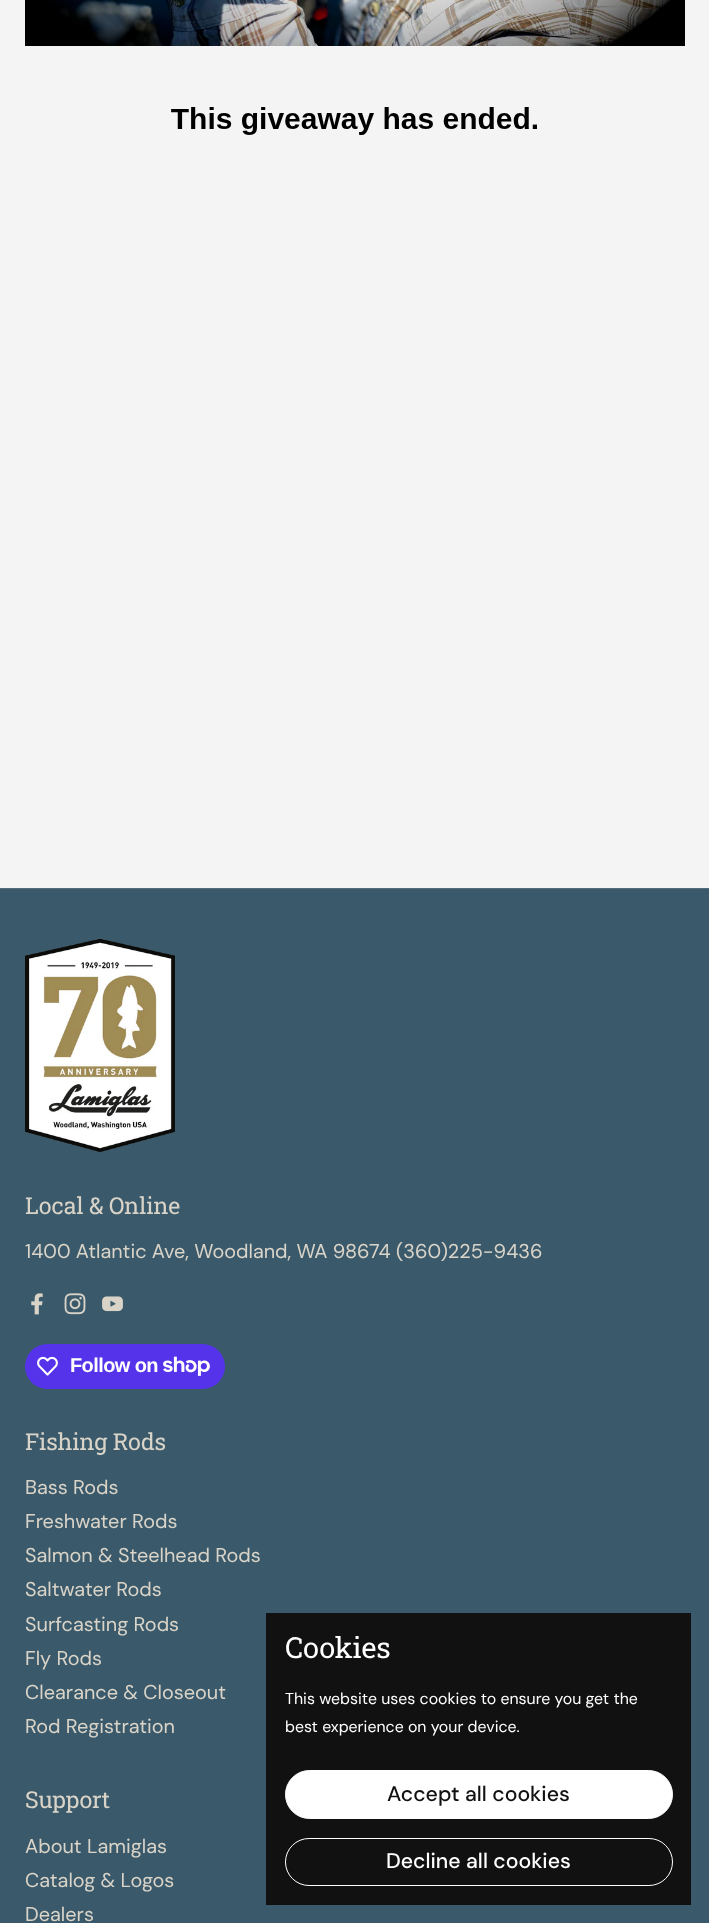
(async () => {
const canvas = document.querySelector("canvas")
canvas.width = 709
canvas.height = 1923
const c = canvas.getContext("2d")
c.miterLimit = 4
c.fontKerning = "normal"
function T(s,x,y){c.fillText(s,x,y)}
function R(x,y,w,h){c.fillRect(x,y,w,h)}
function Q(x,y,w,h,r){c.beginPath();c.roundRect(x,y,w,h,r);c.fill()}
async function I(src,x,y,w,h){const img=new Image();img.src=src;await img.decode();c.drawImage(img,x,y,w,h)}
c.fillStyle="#f4f4f4"
R(0,0,709,1923)
await I("1.png",25,0,660,46)
await I("2.png",171,107,366,28)
c.fillStyle="#3a5a6c"
R(0,889,709,1034)
c.fillStyle="#526c7a"
R(0,888,709,1)
await I("3.png",25,938,150,214)
c.letterSpacing="-0.25px"
c.font="23.25px Roboto Slab"
c.fillStyle="#dad4c8"
T("Local & Online",25,1214)
c.letterSpacing="0px"
c.font="19.9px DM Sans"
T("1400 Atlantic Ave, Woodland, WA 98674 (360)225-9436",25,1258)
await I("4.png",31,1293,12,22)
await I("5.png",64,1293,22,22)
await I("6.png",102,1296,21,16)
c.fillStyle="#5433eb"
Q(25,1344,200,45,22.5)
await I("7.png",37,1356,21,20)
c.letterSpacing="-0.6px"
c.font="bold 20px Liberation Sans"
c.fillStyle="#fff"
T("Follow on",70,1372)
await I("8.png",163,1356,47,20)
c.letterSpacing="-0.25px"
c.font="23.25px Roboto Slab"
c.fillStyle="#dad4c8"
T("Fishing Rods",25,1450)
c.letterSpacing="0px"
c.font="19.9px DM Sans"
T("Bass Rods",25,1494)
T("Freshwater Rods",25,1528)
T("Salmon & Steelhead Rods",25,1562)
T("Saltwater Rods",25,1596)
T("Surfcasting Rods",25,1631)
T("Fly Rods",25,1665)
T("Clearance & Closeout",25,1699)
T("Rod Registration",25,1733)
c.letterSpacing="-0.25px"
c.font="23.25px Roboto Slab"
T("Support",25,1808)
c.letterSpacing="0px"
c.font="19.9px DM Sans"
T("About Lamiglas",25,1853)
T("Catalog & Logos",25,1887)
T("Dealers",25,1921)
c.fillStyle="#111"
R(266,1613,425,292)
c.letterSpacing="-0.25px"
c.font="29px Roboto Slab"
c.fillStyle="#fff"
T("Cookies",285,1658)
c.letterSpacing="0px"
c.font="15.9px 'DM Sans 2'"
T("This website uses cookies to ensure you get the",285,1704)
T("best experience on your device.",285,1732)
c.beginPath()
c.roundRect(285.5,1770.5,387,48,24)
c.fill()
c.strokeStyle="#fff"
c.stroke()
c.font="500 21.25px DM Sans"
c.fillStyle="#111"
T("Accept all cookies",387,1801)
c.beginPath()
c.roundRect(285.5,1838.5,387,47,23.5)
c.stroke()
c.fillStyle="#fff"
T("Decline all cookies",386,1868)
})()
